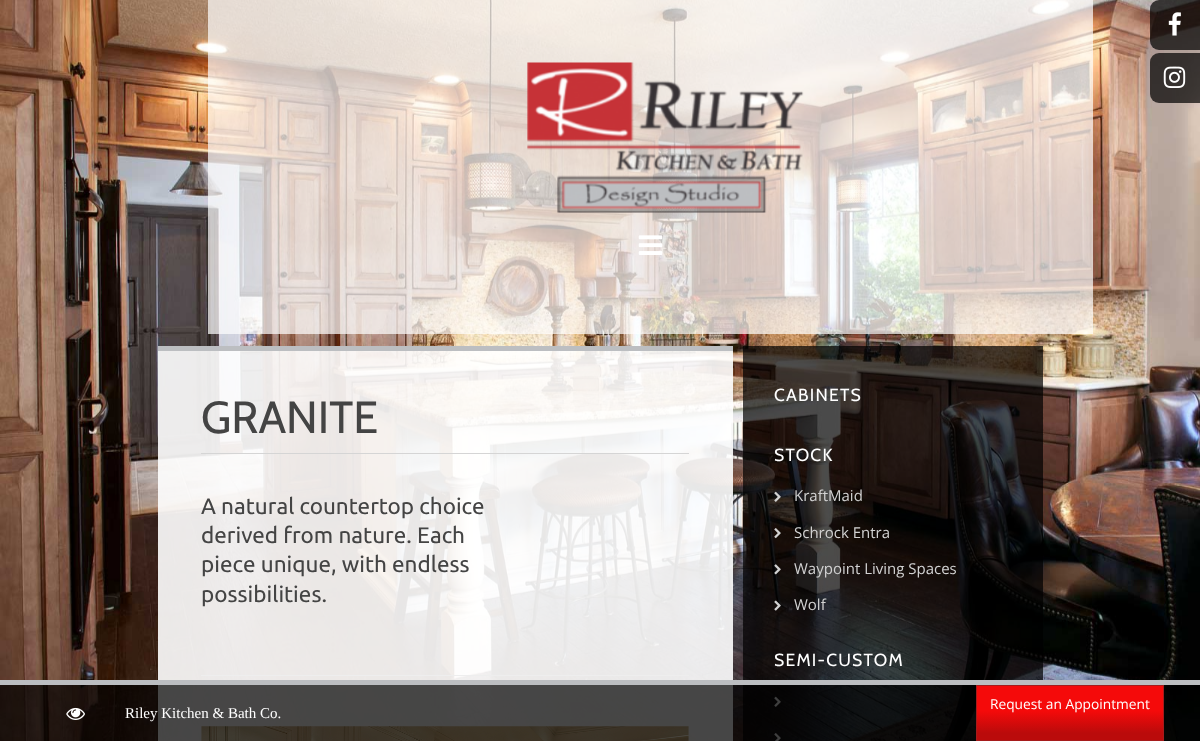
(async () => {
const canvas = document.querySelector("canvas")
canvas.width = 1200
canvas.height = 741
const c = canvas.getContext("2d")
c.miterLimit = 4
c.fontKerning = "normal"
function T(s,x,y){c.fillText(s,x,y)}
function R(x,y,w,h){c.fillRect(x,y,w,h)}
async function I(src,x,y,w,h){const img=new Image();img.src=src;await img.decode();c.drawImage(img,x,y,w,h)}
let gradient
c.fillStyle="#fff"
R(0,0,1200,741)
await I("1.png",0,0,1200,741)
c.fillStyle="#ffffffb3"
R(208,0,885,334)
await I("2.png",527,62,277,151)
await I("3.png",638,235,25,20)
c.fillStyle="#000000b3"
c.beginPath()
c.roundRect(1150,0,50,50,[9,0,0,9])
c.fill()
await I("4.png",1168,12,13,24)
c.beginPath()
c.roundRect(1150,53,50,50,[9,0,0,9])
c.fill()
await I("5.png",1163,66,23,22)
c.fillStyle="#ffffffe6"
R(158,351,575,390)
c.fillStyle="#bcbec1"
R(158,346,575,5)
c.fillStyle="#d5d5d5"
R(201,453,488,1)
c.font="45px Cabin"
c.fillStyle="#444"
T("GRANITE",201,433)
c.font="22.5px Ubuntu"
T("A natural countertop choice",201,514)
T("derived from nature. Each",201,543)
T("piece unique, with endless",201,572)
T("possibilities.",201,602)
c.fillStyle="#eee"
R(201,675,488,1)
await I("6.png",201,726,488,15)
c.fillStyle="#000000b3"
R(743,346,300,395)
c.letterSpacing="1.25px"
c.font="17.5px Cabin"
c.fillStyle="#fff"
T("CABINETS",774,401)
T("STOCK",774,461)
await I("7.png",774,491,7,11)
c.letterSpacing="0px"
c.font="15px Open Sans"
c.fillStyle="#d2d2d2"
T("KraftMaid",794,501)
await I("8.png",774,528,7,11)
T("Schrock Entra",794,538)
await I("9.png",774,564,7,11)
T("Waypoint Living Spaces",794,574)
await I("10.png",774,600,7,11)
T("Wolf",794,610)
c.letterSpacing="1.25px"
c.font="17.5px Cabin"
c.fillStyle="#fff"
T("SEMI-CUSTOM",774,666)
await I("11.png",774,696,7,11)
await I("12.png",774,733,7,8)
c.fillStyle="#000000b3"
R(0,685,1200,56)
c.fillStyle="#bcbec1"
R(0,680,1200,5)
await I("13.png",66,707,19,13)
c.letterSpacing="0px"
c.font="15px Liberation Serif"
c.fillStyle="#fff"
T("Riley Kitchen & Bath Co.",125,718)
gradient = c.createLinearGradient(978,740,978,686)
gradient.addColorStop(.13,"#ba0b0b")
gradient.addColorStop(.54,"#f50a0a")
c.fillStyle = gradient
R(977,686,186,54)
c.strokeStyle="#a61c1c"
c.strokeRect(976.5,685.5,187,55)
c.font="13.75px Open Sans"
c.fillStyle="#fff"
T("Request an Appointment",990,709)
})()
